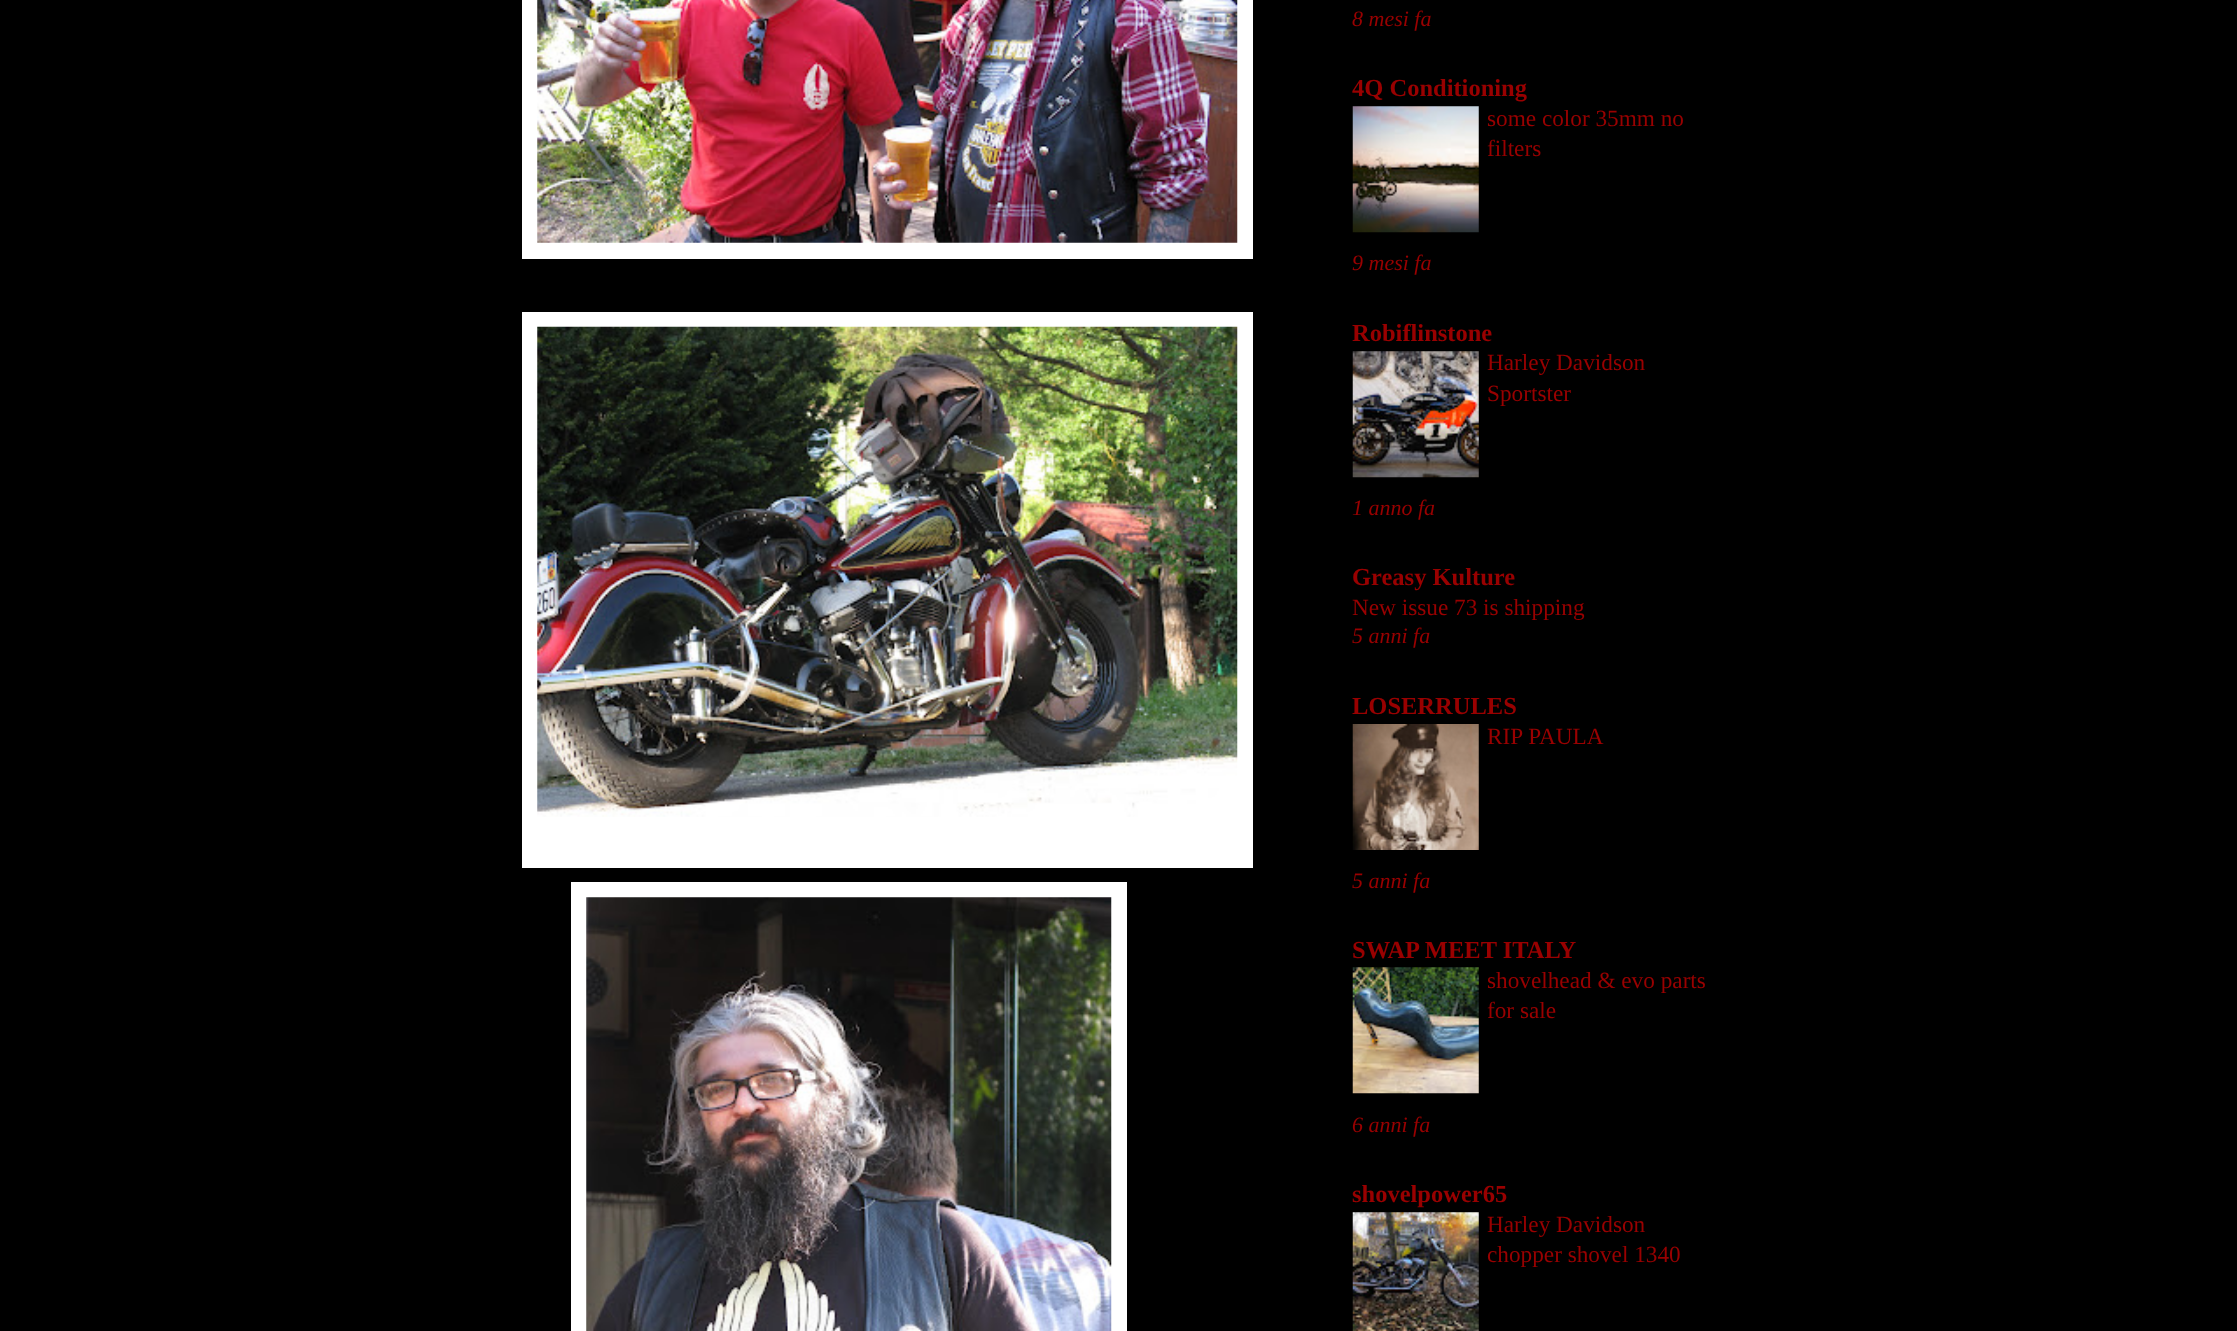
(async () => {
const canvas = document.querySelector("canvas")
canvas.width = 2237
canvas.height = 1331
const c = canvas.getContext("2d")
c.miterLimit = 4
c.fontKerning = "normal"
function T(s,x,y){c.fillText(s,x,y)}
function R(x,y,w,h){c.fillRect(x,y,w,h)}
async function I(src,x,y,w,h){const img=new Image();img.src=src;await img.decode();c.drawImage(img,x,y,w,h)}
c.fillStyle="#000"
R(0,0,2237,1331)
c.fillStyle="#fff"
R(522,0,731,259)
await I("1.png",537,0,701,243)
R(522,312,731,556)
await I("2.png",537,326,701,491)
R(571,882,556,449)
await I("3.png",586,897,526,434)
c.font="italic 22px Liberation Serif"
c.fillStyle="#900"
T("8 mesi fa",1352,26)
c.font="bold 24.5px Liberation Serif"
T("4Q Conditioning",1352,96)
await I("4.png",1352,106,127,127)
c.font="23.25px Liberation Serif"
T("some color 35mm no",1487,126)
T("filters",1487,156)
c.font="italic 22px Liberation Serif"
T("9 mesi fa",1352,270)
c.font="bold 24.5px Liberation Serif"
T("Robiflinstone",1352,341)
await I("5.png",1352,351,127,127)
c.font="23.25px Liberation Serif"
T("Harley Davidson",1487,370)
T("Sportster",1487,401)
c.font="italic 22px Liberation Serif"
T("1 anno fa",1352,515)
c.font="bold 24.5px Liberation Serif"
T("Greasy Kulture",1352,585)
c.font="23.25px Liberation Serif"
T("New issue 73 is shipping",1352,615)
c.font="italic 22px Liberation Serif"
T("5 anni fa",1352,643)
c.font="bold 24.5px Liberation Serif"
T("LOSERRULES",1352,714)
await I("6.png",1352,724,127,126)
c.font="23.25px Liberation Serif"
T("RIP PAULA",1487,744)
c.font="italic 22px Liberation Serif"
T("5 anni fa",1352,888)
c.font="bold 24.5px Liberation Serif"
T("SWAP MEET ITALY",1352,958)
await I("7.png",1352,967,127,127)
c.font="23.25px Liberation Serif"
T("shovelhead & evo parts",1487,988)
T("for sale",1487,1018)
c.font="italic 22px Liberation Serif"
T("6 anni fa",1352,1132)
c.font="bold 24.5px Liberation Serif"
T("shovelpower65",1352,1202)
await I("8.png",1352,1212,127,119)
c.font="23.25px Liberation Serif"
T("Harley Davidson",1487,1232)
T("chopper shovel 1340",1487,1262)
})()
